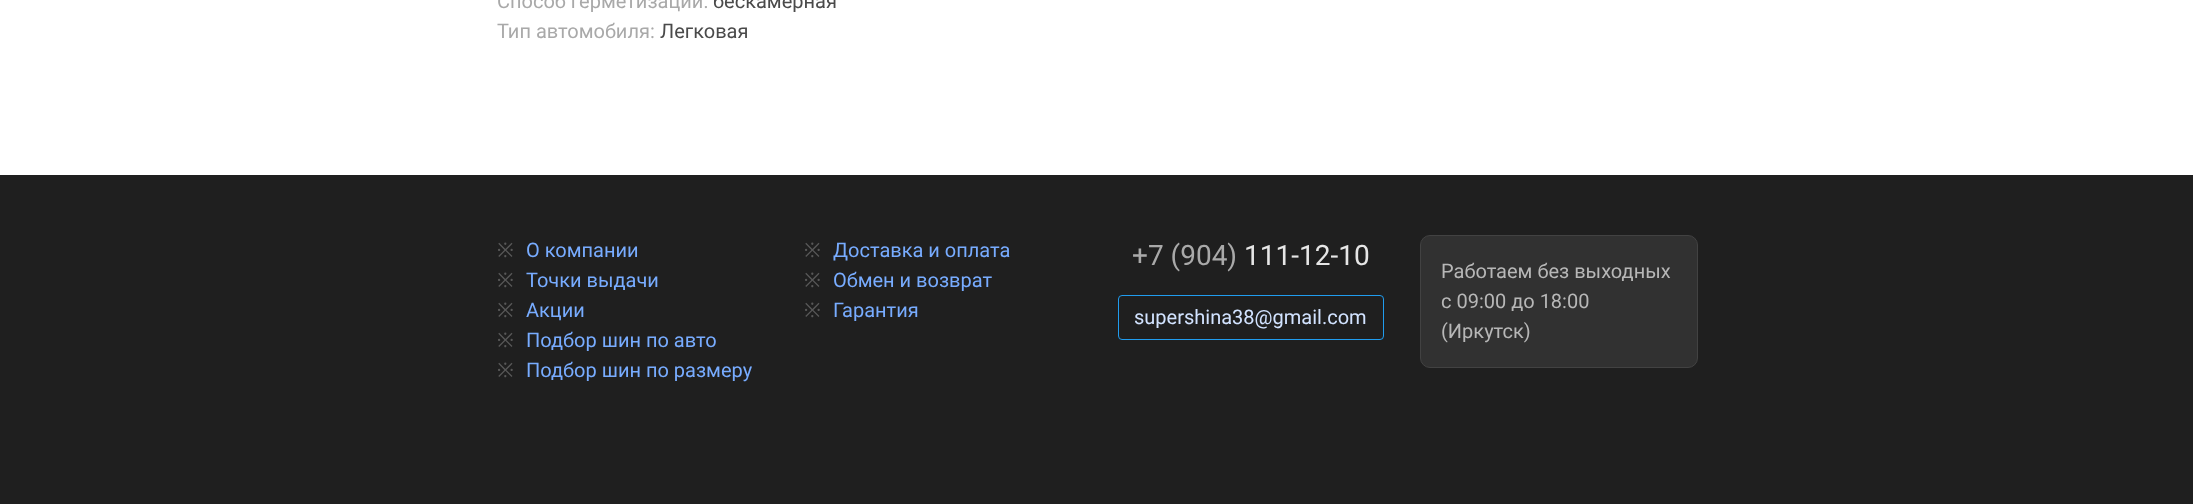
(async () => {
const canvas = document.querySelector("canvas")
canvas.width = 2193
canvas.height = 504
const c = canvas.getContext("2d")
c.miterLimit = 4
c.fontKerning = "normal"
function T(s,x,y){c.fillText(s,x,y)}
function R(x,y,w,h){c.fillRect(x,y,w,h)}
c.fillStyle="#fff"
R(0,0,2193,504)
c.font="20px Roboto"
c.fillStyle="#a9a9a9"
T("Способ герметизации:",497,8)
c.fillStyle="#4a4a4a"
T("бескамерная",713,8)
c.fillStyle="#a9a9a9"
T("Тип автомобиля:",497,38)
c.fillStyle="#4a4a4a"
T("Легковая",660,38)
c.fillStyle="#1f1f1f"
R(0,175,2193,329)
c.font="20px Noto Sans"
c.fillStyle="#585858"
T("※",497,257)
c.font="20px Roboto"
c.fillStyle="#78acff"
T("О компании",526,257)
c.font="20px Noto Sans"
c.fillStyle="#585858"
T("※",497,287)
c.font="20px Roboto"
c.fillStyle="#78acff"
T("Точки выдачи",526,287)
c.font="20px Noto Sans"
c.fillStyle="#585858"
T("※",497,317)
c.font="20px Roboto"
c.fillStyle="#78acff"
T("Акции",526,317)
c.font="20px Noto Sans"
c.fillStyle="#585858"
T("※",497,347)
c.font="20px Roboto"
c.fillStyle="#78acff"
T("Подбор шин по авто",526,347)
c.font="20px Noto Sans"
c.fillStyle="#585858"
T("※",497,377)
c.font="20px Roboto"
c.fillStyle="#78acff"
T("Подбор шин по размеру",526,377)
c.font="20px Noto Sans"
c.fillStyle="#585858"
T("※",804,257)
c.font="20px Roboto"
c.fillStyle="#78acff"
T("Доставка и оплата",833,257)
c.font="20px Noto Sans"
c.fillStyle="#585858"
T("※",804,287)
c.font="20px Roboto"
c.fillStyle="#78acff"
T("Обмен и возврат",833,287)
c.font="20px Noto Sans"
c.fillStyle="#585858"
T("※",804,317)
c.font="20px Roboto"
c.fillStyle="#78acff"
T("Гарантия",833,317)
c.font="28px Roboto"
c.fillStyle="#a9a9a9"
T("+7 (904)",1132,265)
c.fillStyle="#e6e6e6"
T("111-12-10",1244,265)
c.beginPath()
c.roundRect(1118.5,295.5,265,44,3.5)
c.strokeStyle="#209cee"
c.stroke()
c.font="20px Roboto"
c.fillStyle="#d2e3ff"
T("supershina38@gmail.com",1134,324)
c.fillStyle="#313131"
c.beginPath()
c.roundRect(1420.5,235.5,277,132,9.5)
c.fill()
c.strokeStyle="#424242"
c.stroke()
c.fillStyle="#b7b7b7"
T("Работаем без выходных",1441,278)
T("с 09:00 до 18:00",1441,308)
T("(Иркутск)",1441,338)
})()
